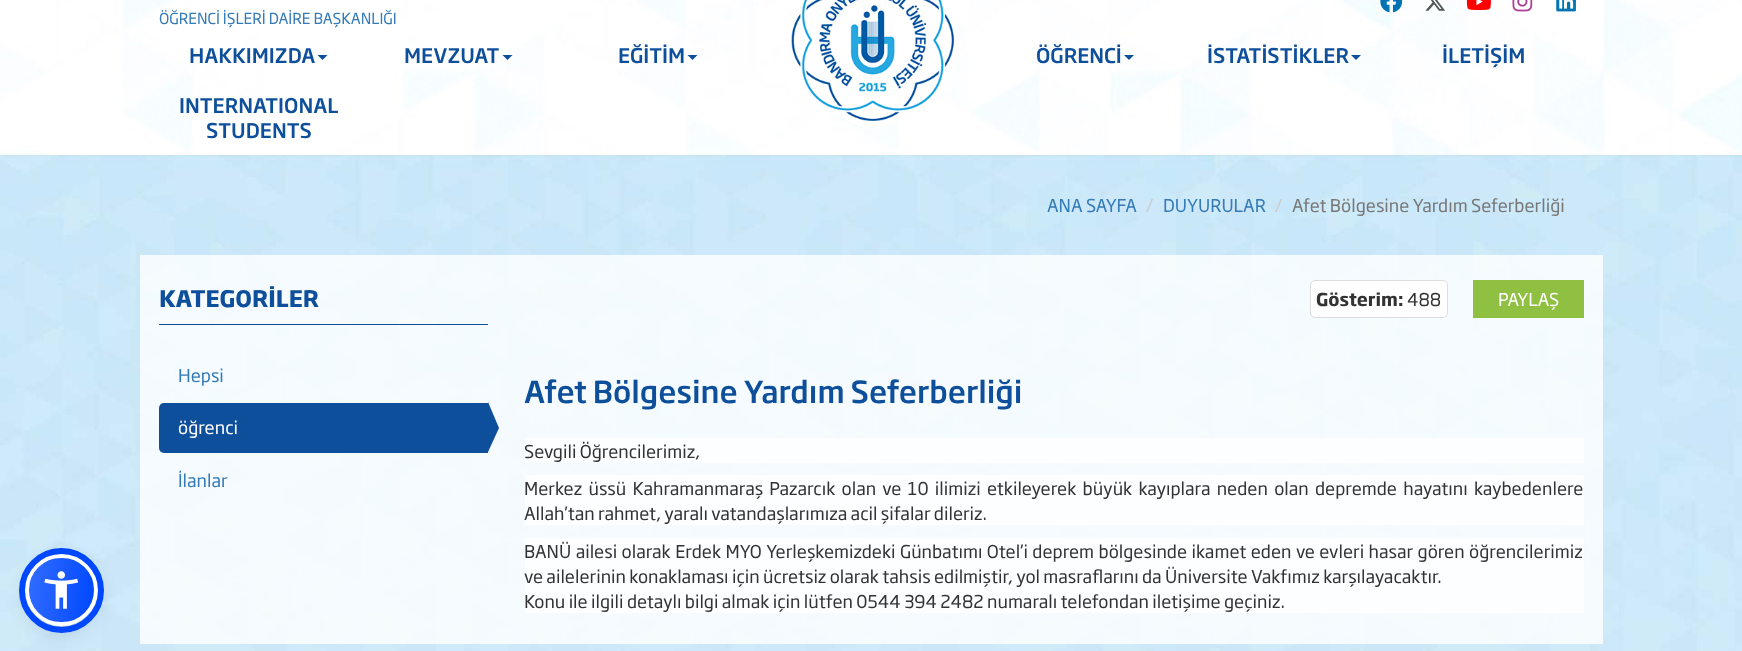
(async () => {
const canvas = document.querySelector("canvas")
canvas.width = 1742
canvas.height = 651
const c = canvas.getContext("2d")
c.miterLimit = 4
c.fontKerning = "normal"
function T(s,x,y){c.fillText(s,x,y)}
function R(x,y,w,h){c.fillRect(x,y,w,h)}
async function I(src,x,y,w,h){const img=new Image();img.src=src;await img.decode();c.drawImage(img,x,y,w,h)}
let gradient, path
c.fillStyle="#fff"
R(0,0,1742,651)
await I("1.png",0,0,1742,155)
await I("2.png",1380,0,23,13)
await I("3.png",1425,0,20,11)
await I("4.png",1466,0,25,10)
await I("5.png",1512,0,21,12)
await I("6.png",1556,0,20,12)
c.font="15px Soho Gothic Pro"
c.fillStyle="#337ab7"
T("ÖĞRENCİ İŞLERİ DAİRE BAŞKANLIĞI",159,24)
c.font="500 20px Soho Gothic Pro"
c.fillStyle="#0e4f9b"
T("HAKKIMIZDA",189,63)
path = new Path2D("M317.5 55h10l-5 5z")
c.fill(path)
T("MEVZUAT",404,63)
path = new Path2D("M502.5 55h10l-5 5z")
c.fill(path)
T("EĞİTİM",618,63)
path = new Path2D("M687.5 55h10l-5 5z")
c.fill(path)
await I("7.png",791,0,169,127)
T("ÖĞRENCİ",1036,63)
path = new Path2D("M1124 55h10l-5 5z")
c.fill(path)
T("İSTATİSTİKLER",1207,63)
path = new Path2D("M1351 55h10l-5 5z")
c.fill(path)
T("İLETİŞİM",1442,63)
T("INTERNATIONAL",179,113)
T("STUDENTS",206,138)
await I("9.png",0,155,1742,496)
c.fillStyle="#5d649433"
c.filter="blur(2.5px)"
c.beginPath()
c.roundRect(25,556,73,73,36.5)
c.fill()
c.filter="none"
c.fillStyle="#252c6126"
c.filter="blur(9.5px)"
c.beginPath()
c.roundRect(25,560,73,73,36.5)
c.fill()
c.filter="none"
c.save()
c.beginPath()
c.roundRect(25,554,73,72,36)
c.clip()
gradient = c.createLinearGradient(26,586,97,594)
gradient.addColorStop(0,"#326cff")
gradient.addColorStop(1,"#0048ff")
c.fillStyle = gradient
R(29,558,65,65)
c.restore()
c.beginPath()
c.roundRect(27,556,69,68,34)
c.strokeStyle="#fff"
c.lineWidth=4
c.stroke()
c.beginPath()
c.arc(61.5,590.5,39.5,0,7)
c.strokeStyle="#0048ff"
c.lineWidth=6
c.stroke()
await I("8.png",44,571,35,38)
c.font="17.5px Soho Gothic Pro"
c.fillStyle="#337ab7"
T("ANA SAYFA",1047,212)
c.fillStyle="#ccc"
T("/",1146,212)
c.fillStyle="#337ab7"
T("DUYURULAR",1163,212)
c.fillStyle="#ccc"
T("/",1275,212)
c.fillStyle="#777"
T("Afet Bölgesine Yardım Seferberliği",1292,212)
c.fillStyle="#ffffffcc"
R(140,255,1463,389)
c.fillStyle="#0e4f9b"
R(159,324,329,1)
c.font="bold 22.5px Soho Gothic Pro"
T("KATEGORİLER",159,307)
c.font="17.5px Soho Gothic Pro"
c.fillStyle="#337ab7"
T("Hepsi",178,382)
c.fillStyle="#0e4f9b"
c.beginPath()
c.roundRect(159,403,329,50,[5,0,0,5])
c.fill()
c.fillStyle="#fff"
T("öğrenci",178,434)
c.fillStyle="#0e4f9b"
path = new Path2D("M488 452v-50l11 26z")
c.fill(path)
c.fillStyle="#337ab7"
T("İlanlar",178,487)
c.fillStyle="#fff"
c.beginPath()
c.roundRect(1310.5,280.5,137,37,4.5)
c.fill()
c.strokeStyle="#ddd"
c.lineWidth=1
c.stroke()
c.font="bold 17.5px Soho Gothic Pro"
c.fillStyle="#333"
T("Gösterim:",1316,306)
c.font="17.5px Soho Gothic Pro"
T("488",1407,306)
c.fillStyle="#90c042"
R(1473,280,111,38)
c.fillStyle="#fff"
T("PAYLAŞ",1498,306)
c.font="500 30px Soho Gothic Pro"
c.fillStyle="#0e4f9b"
T("Afet Bölgesine Yardım Seferberliği",524,403)
c.fillStyle="#ffffffcc"
R(525,438,1059,25)
c.font="17.5px Soho Gothic Pro"
c.fillStyle="#333"
T("Sevgili Öğrencilerimiz,",524,458)
c.fillStyle="#ffffffcc"
R(525,475,1059,50)
c.wordSpacing="2.9px"
c.fillStyle="#333"
T("Merkez üssü Kahramanmaraş Pazarcık olan ve 10 ilimizi etkileyerek büyük kayıplara neden olan depremde hayatını kaybedenlere",524,495)
c.wordSpacing="0px"
T("Allah’tan rahmet, yaralı vatandaşlarımıza acil şifalar dileriz.",524,520)
c.fillStyle="#ffffffcc"
R(525,538,1059,75)
c.wordSpacing="1.1px"
c.fillStyle="#333"
T("BANÜ ailesi olarak Erdek MYO Yerleşkemizdeki Günbatımı Otel’i deprem bölgesinde ikamet eden ve evleri hasar gören öğrencilerimiz",524,558)
c.wordSpacing="0px"
T("ve ailelerinin konaklaması için ücretsiz olarak tahsis edilmiştir, yol masraflarını da Üniversite Vakfımız karşılayacaktır.",524,583)
T("Konu ile ilgili detaylı bilgi almak için lütfen 0544 394 2482 numaralı telefondan iletişime geçiniz.",524,608)
})()
